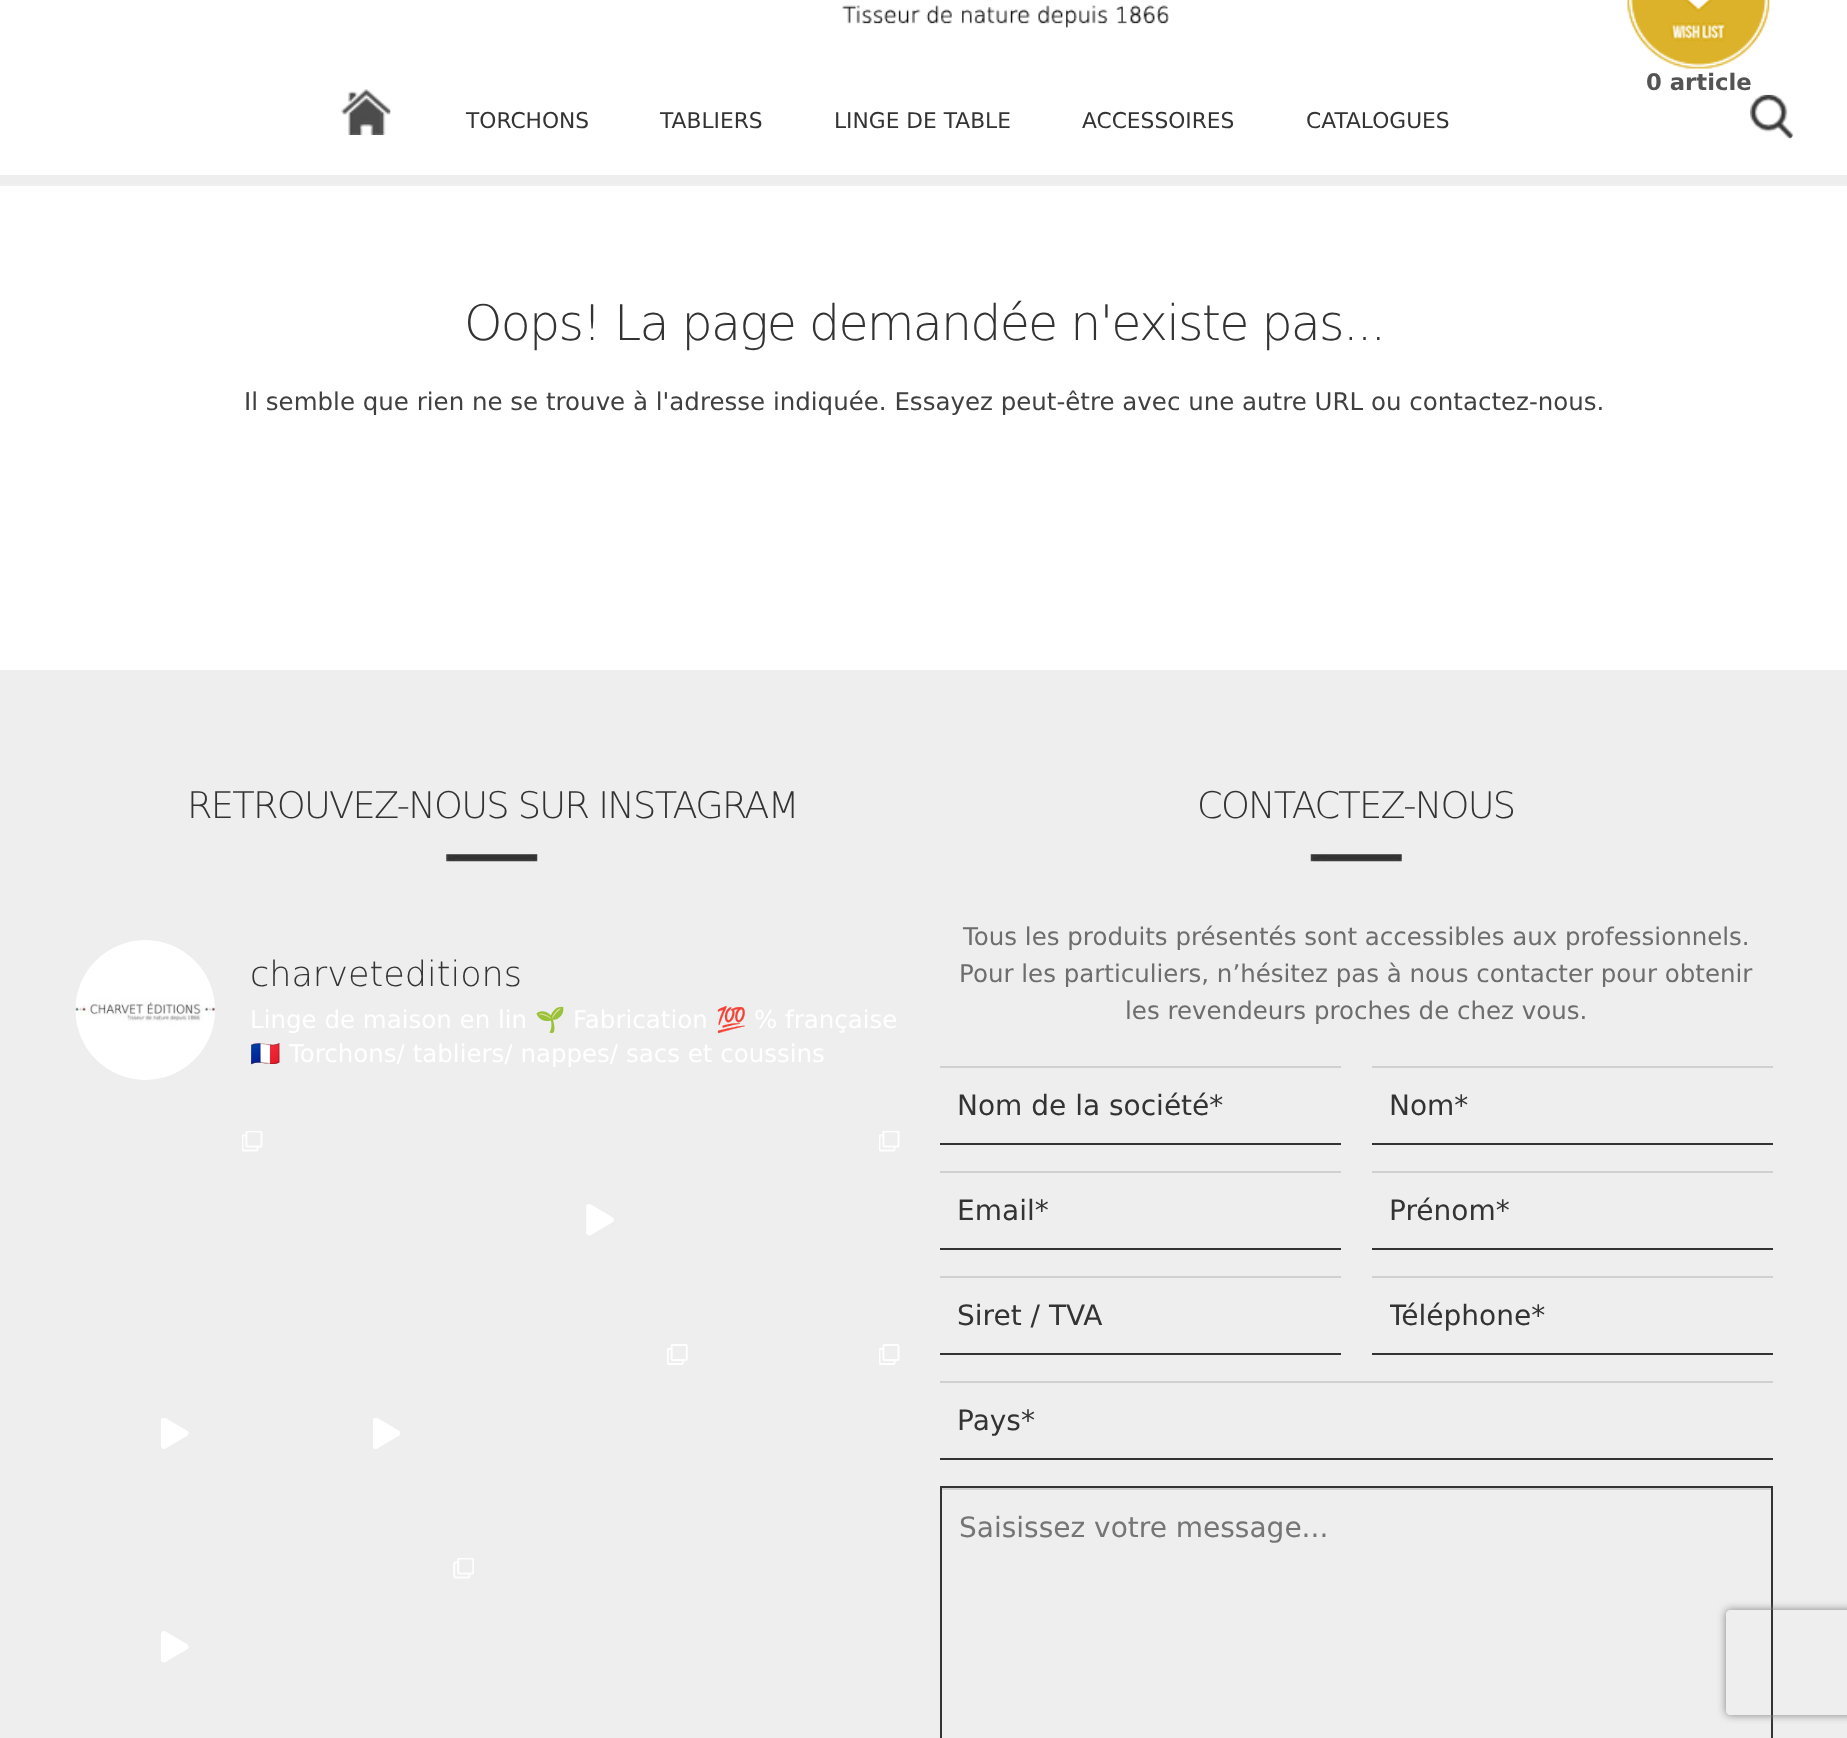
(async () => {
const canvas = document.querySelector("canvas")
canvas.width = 1847
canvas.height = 1738
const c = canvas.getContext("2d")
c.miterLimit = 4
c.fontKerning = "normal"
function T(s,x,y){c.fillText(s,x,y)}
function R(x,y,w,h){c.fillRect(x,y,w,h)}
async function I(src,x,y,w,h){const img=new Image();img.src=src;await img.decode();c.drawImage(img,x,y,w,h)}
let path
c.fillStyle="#fff"
R(0,0,1847,1738)
c.fillStyle="#f0f0f0"
R(0,184,1847,2)
await I("1.png",842,5,327,23)
await I("2.png",1627,0,143,69)
c.font="bold 22.75px DejaVu Sans"
c.fillStyle="#545454"
T("0 article",1646,90)
c.fillStyle="#eee"
R(0,175,1847,9)
await I("3.png",341,89,50,46)
c.font="21.75px DejaVu Sans"
c.fillStyle="#333"
T("TORCHONS",466,128)
T("TABLIERS",660,128)
T("LINGE DE TABLE",834,128)
T("ACCESSOIRES",1082,128)
T("CATALOGUES",1306,128)
await I("4.png",1750,94,44,45)
c.letterSpacing="-1.75px"
c.font="200 49px DejaVu Sans"
T("Oops! La page demandée n'existe pas...",464,340)
c.letterSpacing="0px"
c.font="24.5px DejaVu Sans"
c.fillStyle="#404040"
T("Il semble que rien ne se trouve à l'adresse indiquée. Essayez peut-être avec une autre URL ou contactez-nous.",244,410)
c.fillStyle="#eee"
R(0,670,1847,1068)
await I("5.png",446,854,92,8)
c.letterSpacing="-1.75px"
c.font="200 36.75px DejaVu Sans"
c.fillStyle="#333"
T("RETROUVEZ-NOUS SUR INSTAGRAM",187,818)
await I("6.png",75,940,140,140)
c.letterSpacing="0px"
c.font="200 35px DejaVu Sans"
T("charveteditions",250,986)
c.font="24.5px DejaVu Sans"
c.fillStyle="#fff"
T("Linge de maison en lin",250,1028)
c.font="24.5px Noto Color Emoji"
T("🌱",535,1028)
c.font="24.5px DejaVu Sans"
T("Fabrication",573,1028)
c.font="24.5px Noto Color Emoji"
T("💯",716,1028)
c.font="24.5px DejaVu Sans"
T("% française",754,1028)
c.font="24.5px Noto Color Emoji"
T("🇨🇵",250,1062)
c.font="24.5px DejaVu Sans"
T("Torchons/ tabliers/ nappes/ sacs et coussins",289,1062)
await I("7.png",242,1131,21,21)
await I("7.png",879,1131,21,21)
await I("8.png",586,1204,28,32)
await I("9.png",667,1344,21,21)
await I("10.png",879,1344,21,21)
await I("11.png",161,1418,28,31)
await I("12.png",373,1418,28,31)
await I("13.png",453,1558,21,21)
await I("14.png",161,1631,28,32)
await I("15.png",1310,854,92,8)
c.letterSpacing="-1.75px"
c.font="200 36.75px DejaVu Sans"
c.fillStyle="#333"
T("CONTACTEZ-NOUS",1197,818)
c.letterSpacing="0px"
c.font="24.5px DejaVu Sans"
c.fillStyle="#6d6d6d"
T("Tous les produits présentés sont accessibles aux professionnels.",963,945)
T("Pour les particuliers, n’hésitez pas à nous contacter pour obtenir",959,982)
T("les revendeurs proches de chez vous.",1125,1019)
c.fillStyle="#d0d0d0"
R(940,1066,401,2)
c.fillStyle="#333"
R(940,1143,401,2)
c.font="28px DejaVu Sans"
T("Nom de la société*",957,1115)
c.fillStyle="#d0d0d0"
R(940,1171,401,2)
c.fillStyle="#333"
R(940,1248,401,2)
T("Email*",957,1220)
c.fillStyle="#d0d0d0"
R(940,1276,401,2)
c.fillStyle="#333"
R(940,1353,401,2)
T("Siret / TVA",957,1325)
c.fillStyle="#d0d0d0"
R(1372,1066,401,2)
c.fillStyle="#333"
R(1372,1143,401,2)
T("Nom*",1389,1115)
c.fillStyle="#d0d0d0"
R(1372,1171,401,2)
c.fillStyle="#333"
R(1372,1248,401,2)
T("Prénom*",1389,1220)
c.fillStyle="#d0d0d0"
R(1372,1276,401,2)
c.fillStyle="#333"
R(1372,1353,401,2)
c.save()
c.beginPath()
c.rect(1390,1290,365,49)
c.clip()
T("Téléphone*",1389,1325)
c.restore()
c.fillStyle="#d0d0d0"
R(940,1381,833,2)
c.fillStyle="#333"
R(940,1458,833,2)
T("Pays*",957,1430)
c.fillStyle="#d0d0d0"
R(942,1488,829,2)
c.strokeStyle="#333"
c.lineWidth=2
c.strokeRect(941,1487,831,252)
c.fillStyle="#757575"
T("Saisissez votre message...",959,1537)
c.save()
path = new Path2D("M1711 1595h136v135h-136zm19 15h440c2 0 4 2 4 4v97c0 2-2 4-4 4h-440c-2 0-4-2-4-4v-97c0-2 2-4 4-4z")
c.clip(path,"evenodd")
c.fillStyle="#808080"
c.filter="blur(4.5px)"
c.beginPath()
c.roundRect(1726,1610,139,105,4)
c.fill()
c.filter="none"
c.restore()
})()
